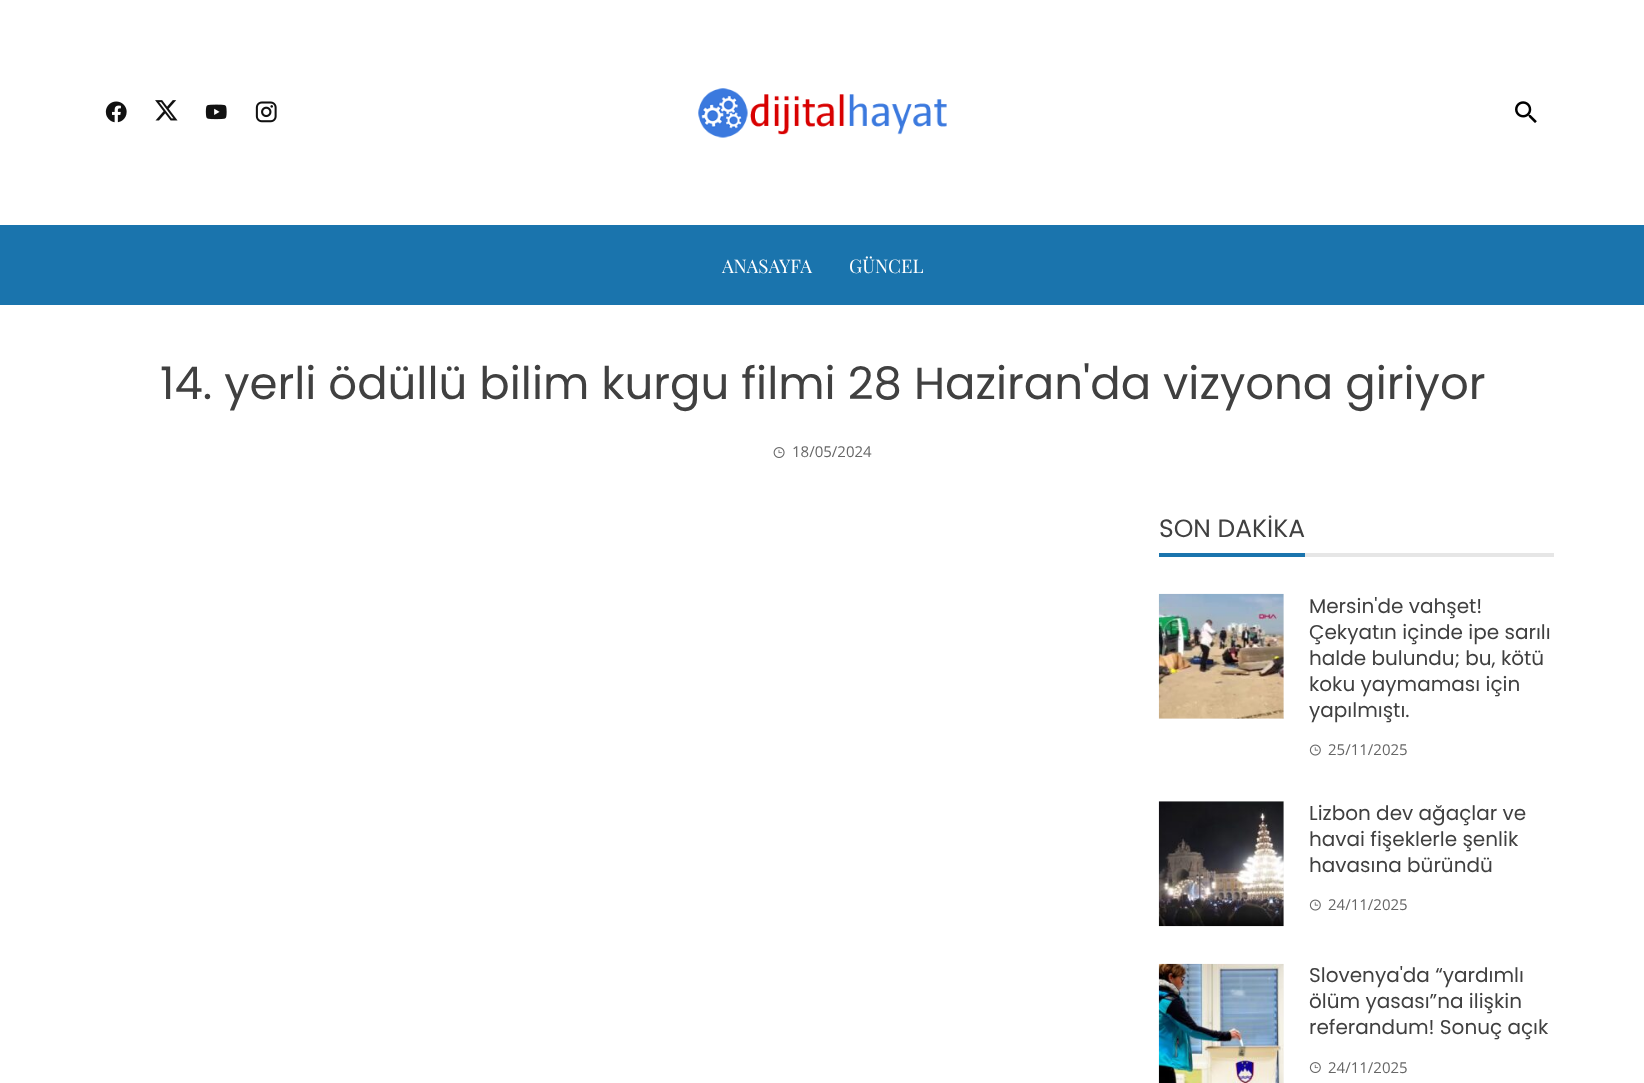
(async () => {
const canvas = document.querySelector("canvas")
canvas.width = 1644
canvas.height = 1083
const c = canvas.getContext("2d")
c.miterLimit = 4
c.fontKerning = "normal"
function T(s,x,y){c.fillText(s,x,y)}
function R(x,y,w,h){c.fillRect(x,y,w,h)}
async function I(src,x,y,w,h){const img=new Image();img.src=src;await img.decode();c.drawImage(img,x,y,w,h)}
c.fillStyle="#fff"
R(0,0,1644,1083)
await I("1.png",105,101,22,22)
await I("2.png",155,100,23,21)
await I("3.png",205,104,22,16)
await I("4.png",255,101,22,22)
await I("5.png",698,88,249,50)
await I("6.png",1515,101,22,22)
c.fillStyle="#1a74ad"
R(0,225,1644,80)
c.font="18.75px Playfair Display"
c.fillStyle="#fff"
T("ANASAYFA",722,273)
T("GÜNCEL",849,273)
c.font="45px Poppins"
c.fillStyle="#404040"
T("14. yerli ödüllü bilim kurgu filmi 28 Haziran'da vizyona giriyor",160,399)
await I("7.png",773,447,12,11)
c.font="15px Open Sans"
c.fillStyle="#666"
T("18/05/2024",792,457)
c.fillStyle="#e6e6e6"
R(1305,553,249,4)
c.font="25px Poppins"
c.fillStyle="#404040"
T("SON DAKİKA",1159,537)
c.fillStyle="#1a74ad"
R(1159,553,146,4)
c.fillStyle="#f7f7f7"
R(1159,594,125,125)
await I("8.png",1158,593,126,126)
c.font="20px Poppins"
c.fillStyle="#404040"
T("Mersin'de vahşet!",1309,613)
T("Çekyatın içinde ipe sarılı",1309,639)
T("halde bulundu; bu, kötü",1309,665)
T("koku yaymaması için",1309,691)
T("yapılmıştı.",1309,717)
await I("9.png",1309,744,12,12)
c.font="15px Open Sans"
c.fillStyle="#666"
T("25/11/2025",1328,755)
c.fillStyle="#f7f7f7"
R(1159,801,125,125)
await I("10.png",1158,801,126,126)
c.font="20px Poppins"
c.fillStyle="#404040"
T("Lizbon dev ağaçlar ve",1309,820)
T("havai fişeklerle şenlik",1309,846)
T("havasına büründü",1309,872)
await I("9.png",1309,899,12,12)
c.font="15px Open Sans"
c.fillStyle="#666"
T("24/11/2025",1328,910)
c.fillStyle="#f7f7f7"
R(1283,964,1,119)
await I("11.png",1158,963,126,120)
c.font="20px Poppins"
c.fillStyle="#404040"
T("Slovenya'da “yardımlı",1309,982)
T("ölüm yasası”na ilişkin",1309,1008)
T("referandum! Sonuç açık",1309,1034)
await I("12.png",1309,1062,12,11)
c.font="15px Open Sans"
c.fillStyle="#666"
T("24/11/2025",1328,1073)
})()
